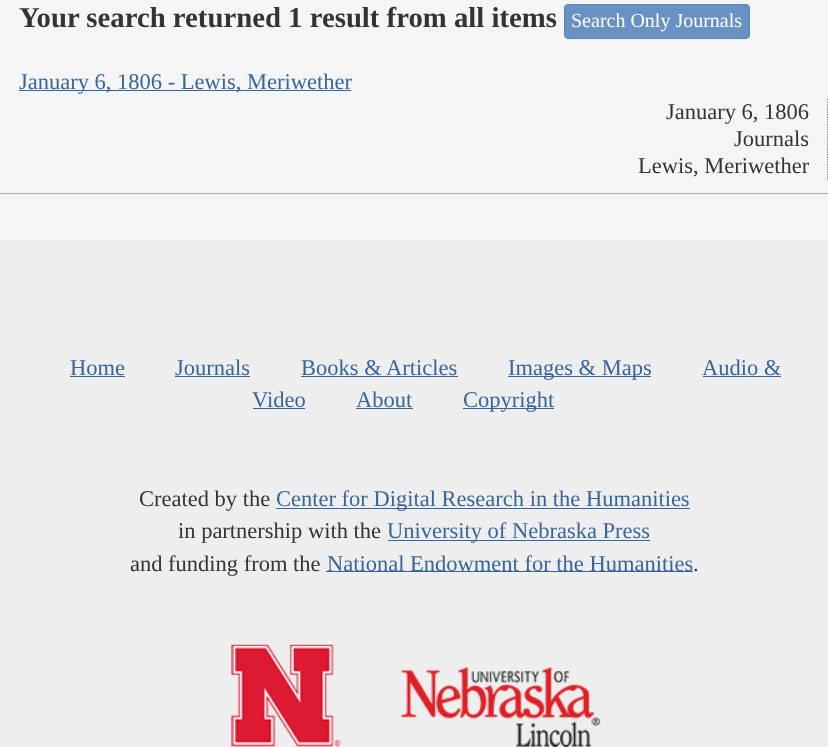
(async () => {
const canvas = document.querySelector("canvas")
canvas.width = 828
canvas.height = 747
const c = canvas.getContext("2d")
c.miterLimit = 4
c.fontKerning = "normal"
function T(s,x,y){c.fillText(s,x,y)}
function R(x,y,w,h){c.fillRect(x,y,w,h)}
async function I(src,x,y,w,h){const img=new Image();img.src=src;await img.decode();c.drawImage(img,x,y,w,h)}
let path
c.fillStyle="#eee"
R(0,0,828,747)
c.fillStyle="#f5f5f5"
R(0,0,828,240)
c.font="bold 28.75px Liberation Serif"
c.fillStyle="#333"
T("Your search returned 1 result from all items",19,27)
c.fillStyle="#6991c2"
c.beginPath()
c.roundRect(564.5,4.5,185,34,3.5)
c.fill()
c.strokeStyle="#5784bb"
c.stroke()
c.font="20px Liberation Serif"
c.fillStyle="#fff"
T("Search Only Journals",571,27)
c.fillStyle="#aaa"
R(0,193,828,1)
c.fillStyle="#36659c"
R(19,90,332,1)
c.font="22.5px Liberation Serif"
T("January 6, 1806 - Lewis, Meriwether",19,89)
path = new Path2D("M828 99v81")
c.strokeStyle="#333"
c.lineWidth=1.2
c.setLineDash([1.25,1.25])
c.stroke(path)
c.fillStyle="#333"
T("January 6, 1806",666,119)
T("Journals",734,146)
T("Lewis, Meriwether",638,173)
c.fillStyle="#36659c"
T("Home",70,375)
R(70,376,55,1)
T("Journals",175,375)
R(175,376,75,1)
T("Books & Articles",301,375)
R(301,376,157,1)
R(508,376,143,1)
T("Images & Maps",508,375)
T("Audio &",702,375)
R(703,376,78,1)
T("Video",252,407)
R(253,408,52,1)
T("About",356,407)
R(356,408,57,1)
R(463,408,91,1)
T("Copyright",463,407)
c.fillStyle="#333"
T("Created by the",139,506)
c.fillStyle="#36659c"
R(276,508,414,1)
T("Center for Digital Research in the Humanities",276,506)
c.fillStyle="#333"
T("in partnership with the",178,538)
c.fillStyle="#36659c"
R(388,540,262,1)
T("University of Nebraska Press",387,538)
c.fillStyle="#333"
T("and funding from the",130,571)
c.fillStyle="#36659c"
R(326,571,367,1)
T("National Endowment for the Humanities",327,571)
c.fillStyle="#333"
T(".",693,571)
await I("1.png",231,644,370,103)
})()
